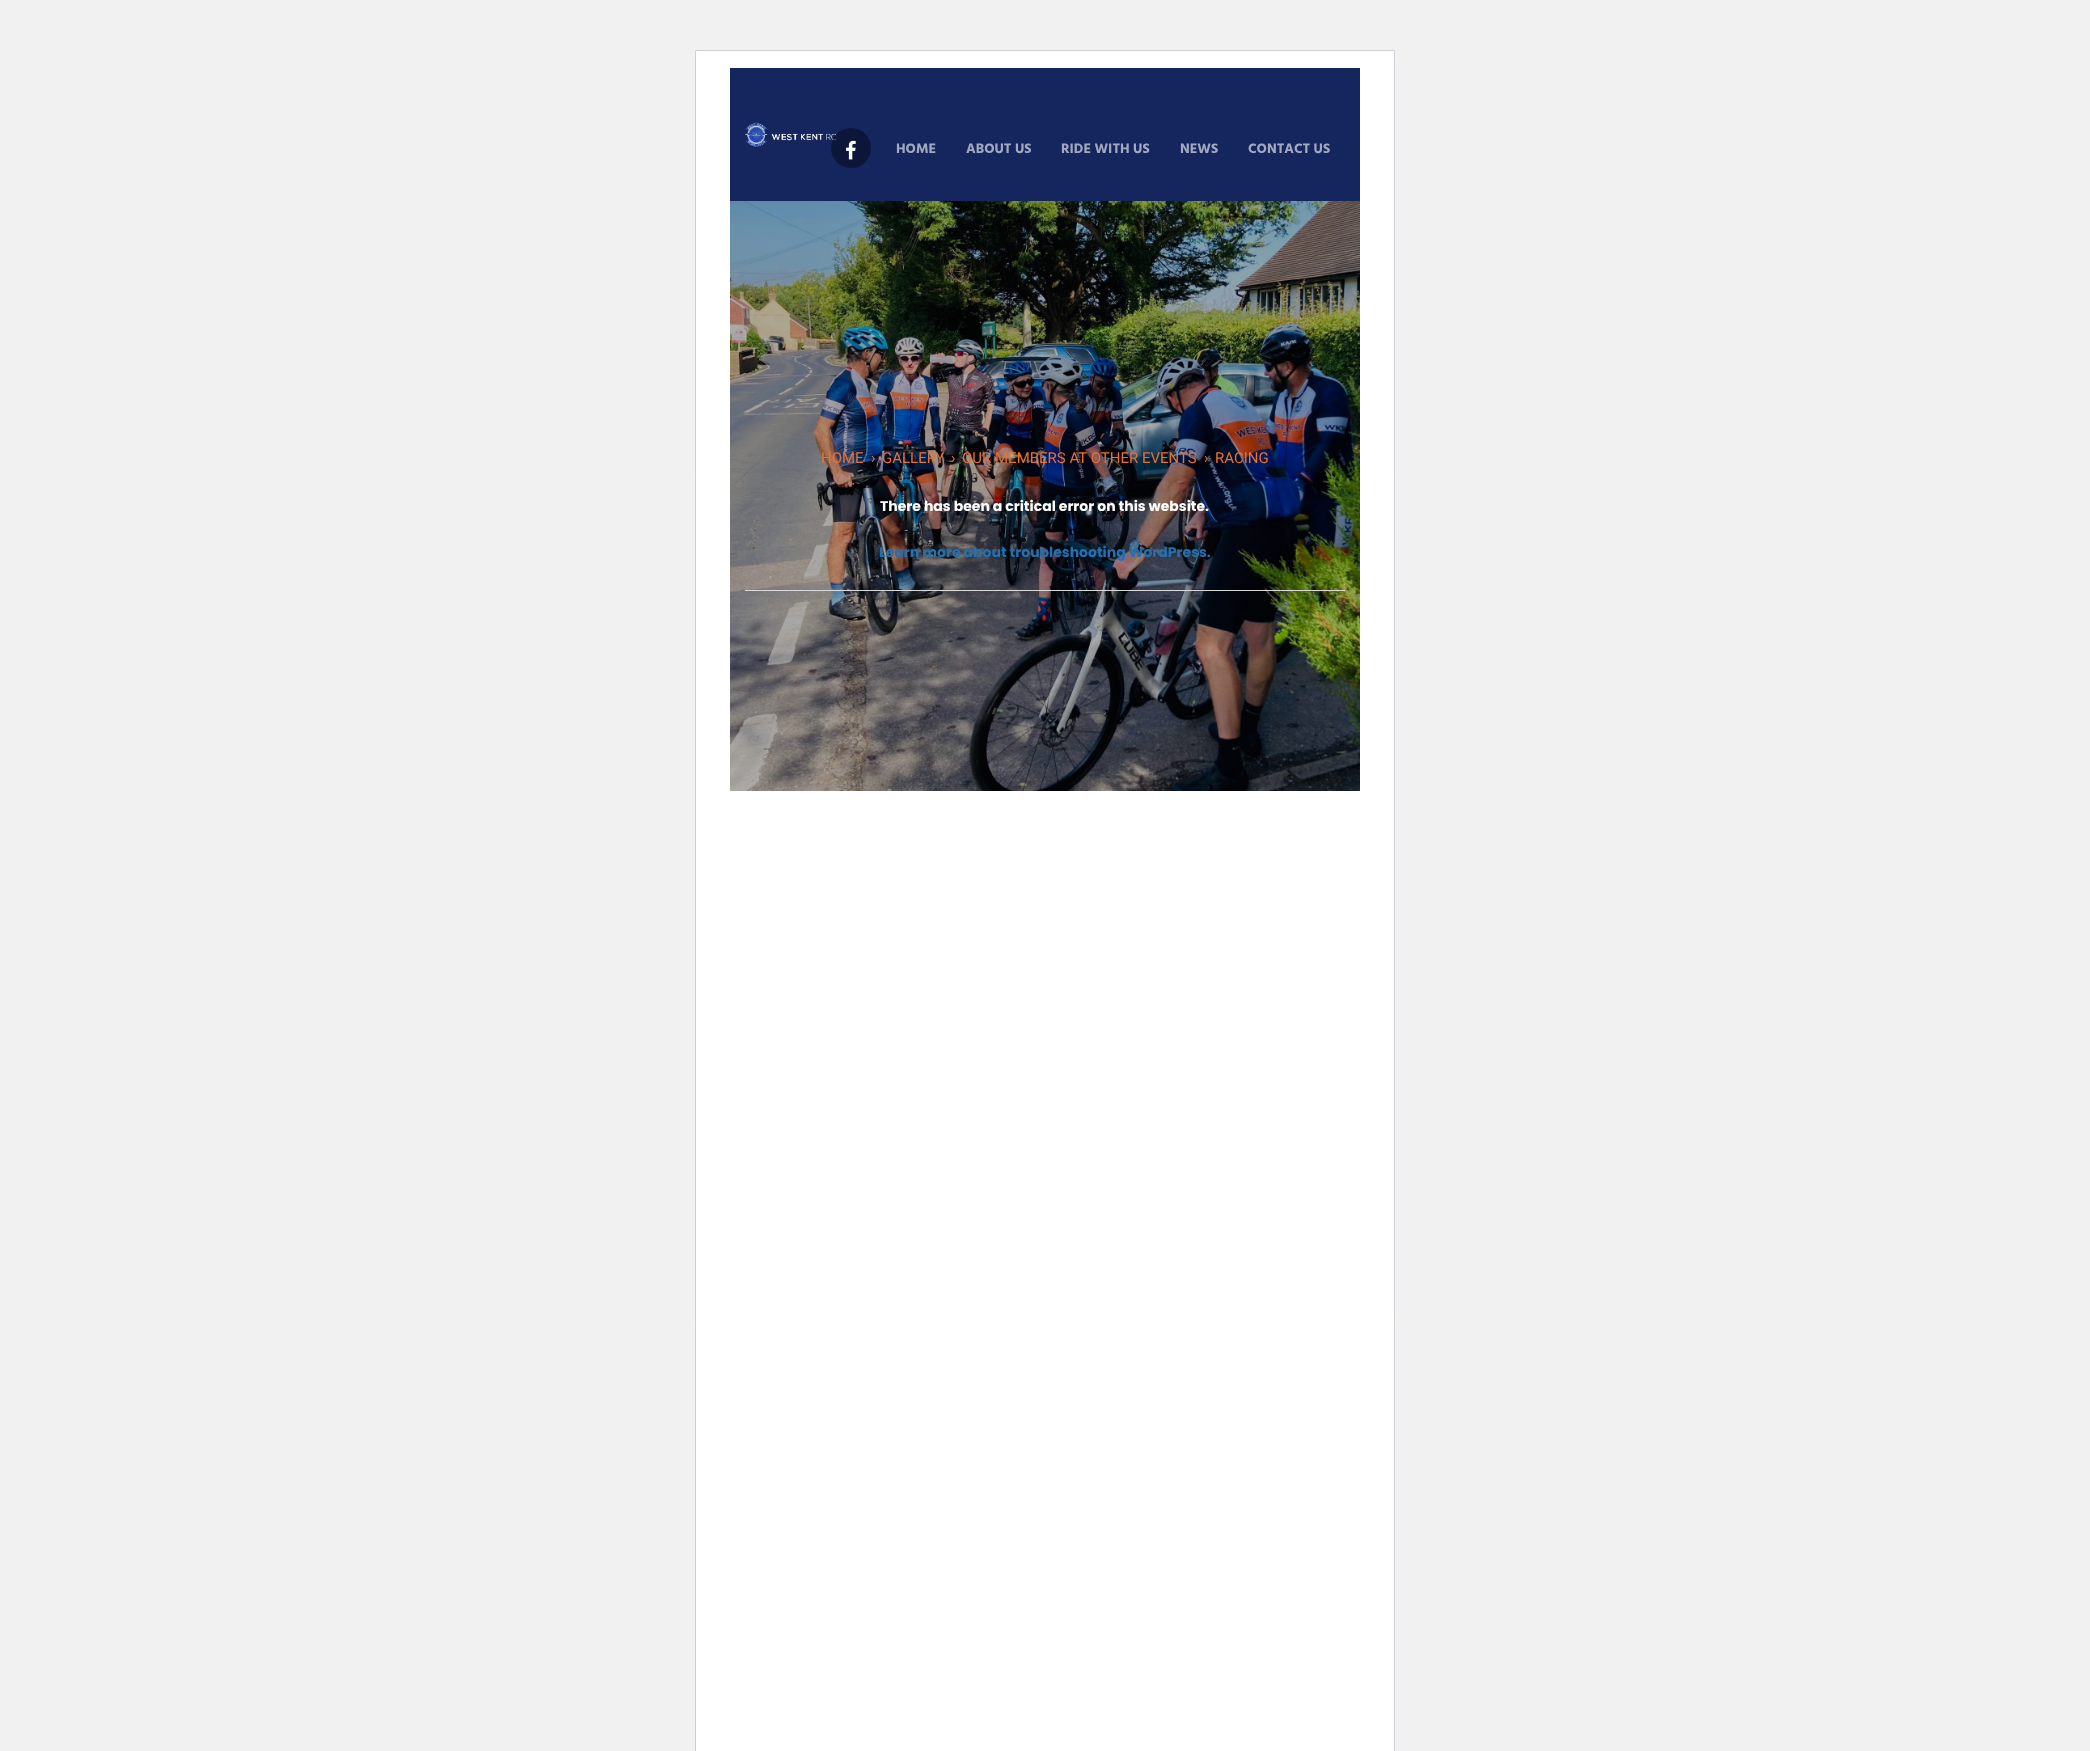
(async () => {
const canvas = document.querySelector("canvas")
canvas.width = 2090
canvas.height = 1751
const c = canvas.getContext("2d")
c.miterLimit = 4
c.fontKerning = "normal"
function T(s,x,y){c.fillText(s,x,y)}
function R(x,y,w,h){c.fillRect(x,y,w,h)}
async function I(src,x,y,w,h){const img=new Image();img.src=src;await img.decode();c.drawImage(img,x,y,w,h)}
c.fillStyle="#f1f1f1"
R(0,0,2090,1751)
c.fillStyle="#fff"
c.beginPath()
c.rect(695.5,50.5,699,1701)
c.fill()
c.strokeStyle="#ccd0d4"
c.stroke()
c.fillStyle="#15265f"
R(730,68,630,133)
await I("1.png",745,122,92,25)
c.fillStyle="#00000066"
c.beginPath()
c.arc(851,148,20,0,7)
c.fill()
await I("2.png",846,140,10,20)
c.font="bold 14px Hind"
c.fillStyle="#a1a8bf"
T("HOME",896,153)
T("ABOUT US",966,153)
T("RIDE WITH US",1061,153)
T("NEWS",1180,153)
T("CONTACT US",1248,153)
await I("3.png",730,201,630,590)
c.font="15px Roboto"
c.fillStyle="#ed702d"
T("HOME",821,463)
T("›",871,463)
T("GALLERY",882,463)
T("›",951,463)
T("OUR MEMBERS AT OTHER EVENTS",962,463)
T("›",1204,463)
T("RACING",1215,463)
c.fillStyle="#dadada"
R(745,590,600,1)
c.font="bold 14px Poppins"
c.fillStyle="#fff"
T("There has been a critical error on this website.",880,511)
c.fillStyle="#2271b1"
T("Learn more about troubleshooting WordPress.",879,557)
})()
